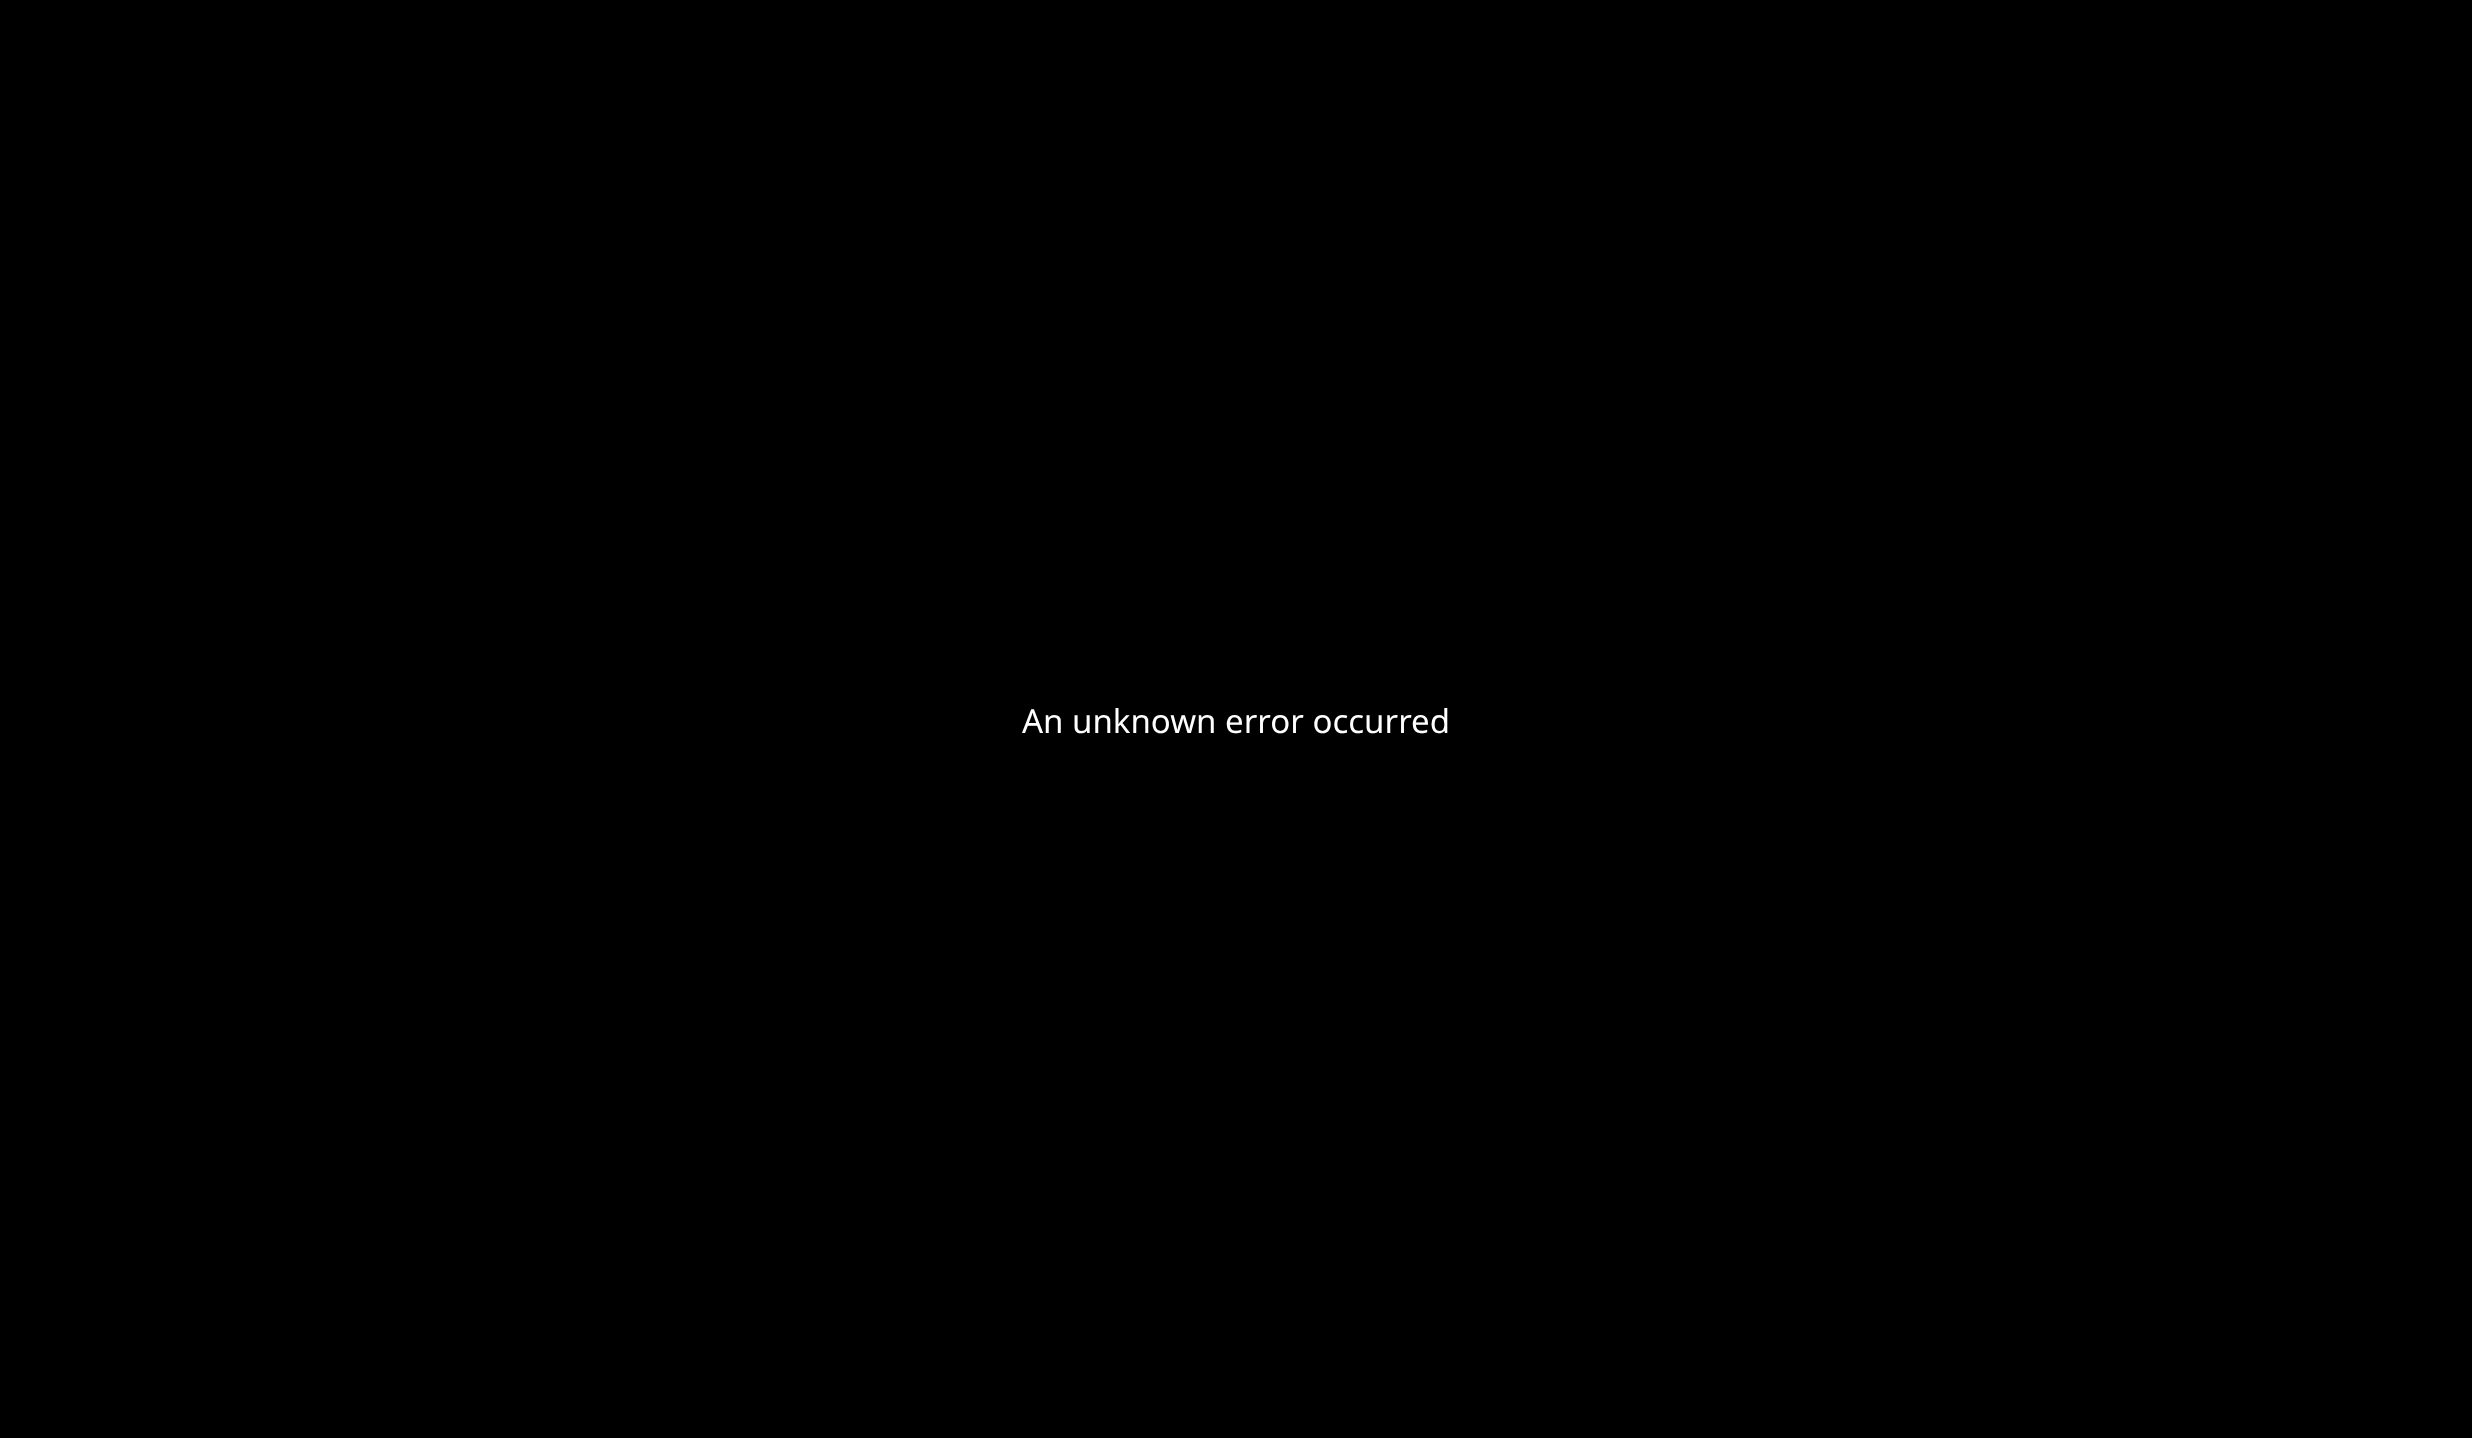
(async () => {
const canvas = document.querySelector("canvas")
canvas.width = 2472
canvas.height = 1438
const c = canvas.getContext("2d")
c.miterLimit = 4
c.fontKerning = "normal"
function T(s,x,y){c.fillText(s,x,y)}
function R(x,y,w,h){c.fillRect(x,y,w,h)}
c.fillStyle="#000"
R(0,0,2472,1438)
c.font="33px Noto Sans"
c.fillStyle="#fff"
T("An unknown error occurred",1022,733)
})()
